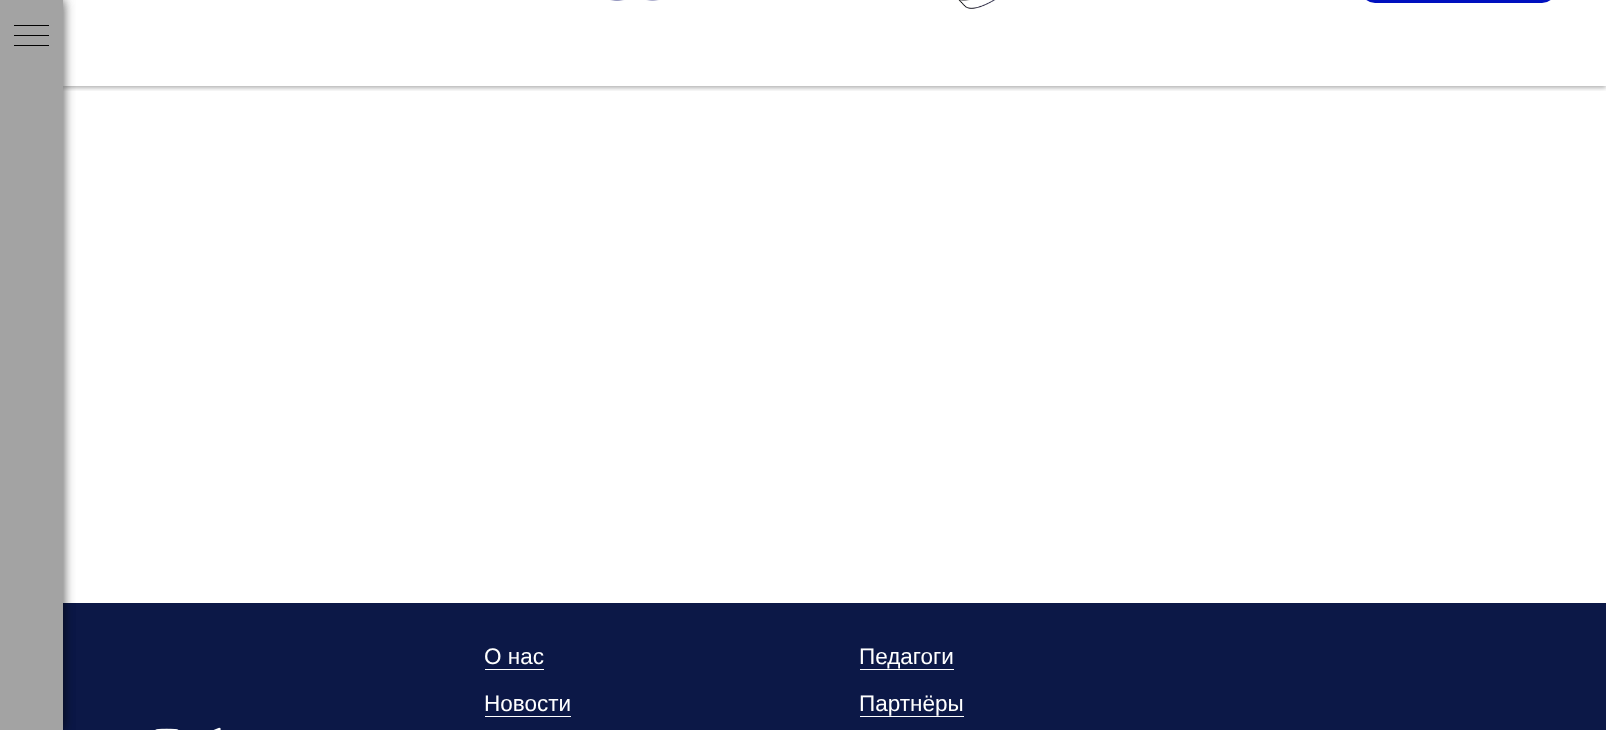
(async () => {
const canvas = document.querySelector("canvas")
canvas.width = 1606
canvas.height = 730
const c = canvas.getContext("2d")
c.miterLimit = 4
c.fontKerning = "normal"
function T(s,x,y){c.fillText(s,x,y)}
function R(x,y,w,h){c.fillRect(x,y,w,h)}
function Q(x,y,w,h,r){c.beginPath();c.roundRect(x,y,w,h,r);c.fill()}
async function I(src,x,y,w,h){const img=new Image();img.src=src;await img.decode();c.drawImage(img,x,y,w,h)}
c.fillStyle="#fff"
R(0,0,1606,730)
c.fillStyle="#0c1847"
R(63,603,1543,127)
c.fillStyle="#00000066"
c.filter="blur(6px)"
c.beginPath()
c.rect(-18,0,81,730)
c.fill()
c.filter="none"
c.save()
c.beginPath()
c.rect(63,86,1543,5)
c.clip()
c.fillStyle="#0000004d"
c.filter="blur(2px)"
c.beginPath()
c.rect(63,-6,1543,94)
c.fill()
c.filter="none"
c.restore()
c.fillStyle="#0010bf"
Q(1361,-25,195,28,25)
await I("1.png",610,0,386,9)
c.fillStyle="#00000066"
c.filter="blur(6px)"
c.beginPath()
c.rect(-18,0,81,730)
c.fill()
c.filter="none"
c.fillStyle="#a3a3a3"
R(0,0,63,730)
c.fillStyle="#000"
R(14,25,35,1)
R(14,35,35,1)
R(14,45,35,1)
c.font="22.5px Liberation Sans"
c.fillStyle="#fff"
T("О нас",484,664)
R(485,669,59,1)
T("Новости",484,711)
R(485,716,86,1)
T("Педагоги",859,664)
R(860,669,94,1)
T("Партнёры",859,711)
R(860,716,104,1)
await I("2.png",155,728,24,2)
await I("3.png",213,727,8,3)
})()
